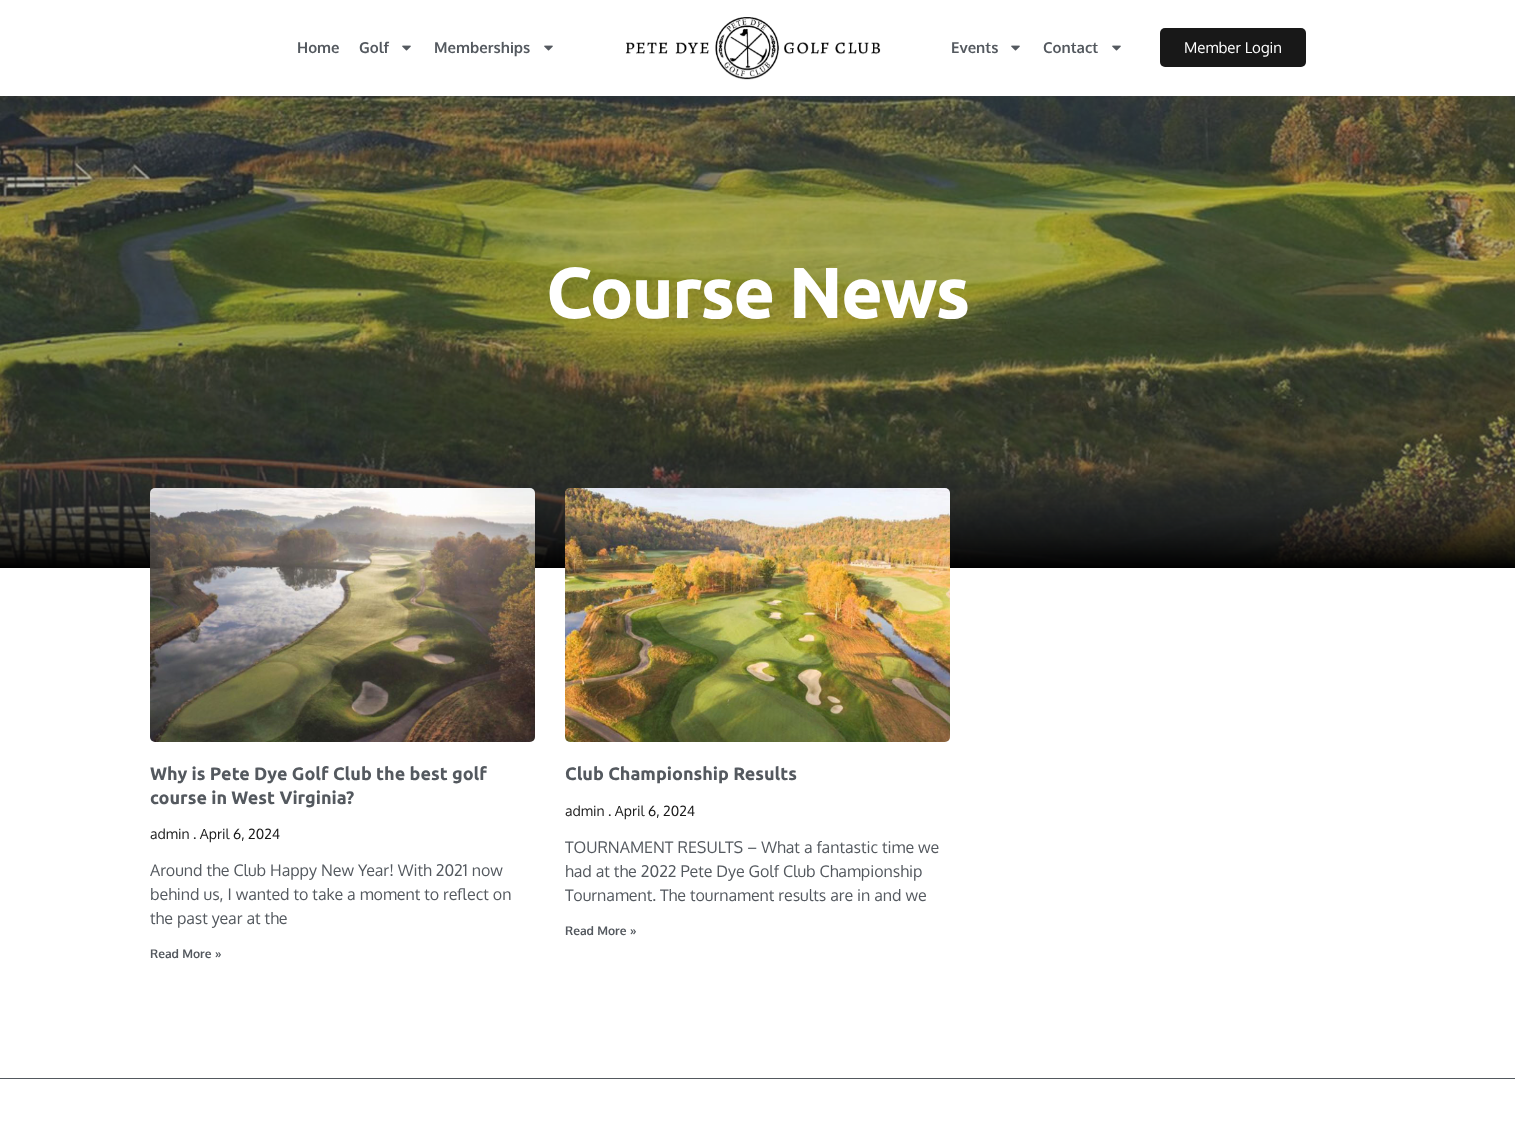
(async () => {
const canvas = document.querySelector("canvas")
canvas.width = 1515
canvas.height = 1131
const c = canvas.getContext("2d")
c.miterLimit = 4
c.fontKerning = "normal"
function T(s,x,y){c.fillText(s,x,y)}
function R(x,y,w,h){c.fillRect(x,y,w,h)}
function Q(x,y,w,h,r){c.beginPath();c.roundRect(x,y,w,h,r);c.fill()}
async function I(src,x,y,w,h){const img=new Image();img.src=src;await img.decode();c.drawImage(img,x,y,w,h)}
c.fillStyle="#fff"
R(0,0,1515,1131)
c.font="bold 15px Oxygen"
c.fillStyle="#54595f"
T("Home",297,53)
T("Golf",359,53)
await I("1.png",402,45,9,6)
T("Memberships",434,53)
await I("1.png",544,45,9,6)
await I("2.png",625,17,256,63)
T("Events",951,53)
await I("1.png",1011,45,9,6)
T("Contact",1043,53)
await I("1.png",1112,45,9,6)
c.fillStyle="#181818"
Q(1160,28,146,39,5)
c.font="15px Oxygen"
c.fillStyle="#fff"
T("Member Login",1184,53)
await I("3.png",0,96,1515,472)
c.letterSpacing="-2px"
c.font="bold 72px Ubuntu"
T("Course News",546,318)
await I("4.png",150,488,385,254)
c.letterSpacing="0px"
c.font="bold 18px Ubuntu"
c.fillStyle="#54595f"
T("Why is Pete Dye Golf Club the best golf",150,780)
T("course in West Virginia?",150,804)
c.font="14px Oxygen"
c.fillStyle="#181818"
T("admin . April 6, 2024",150,839)
c.font="16px Oxygen"
c.fillStyle="#54595f"
T("Around the Club Happy New Year! With 2021 now",150,876)
T("behind us, I wanted to take a moment to reflect on",150,900)
T("the past year at the",150,924)
c.font="bold 12px Oxygen"
T("Read More »",150,958)
await I("5.png",565,488,385,254)
c.font="bold 18px Ubuntu"
T("Club Championship Results",565,780)
c.font="14px Oxygen"
c.fillStyle="#181818"
T("admin . April 6, 2024",565,816)
c.font="16px Oxygen"
c.fillStyle="#54595f"
T("TOURNAMENT RESULTS – What a fantastic time we",565,853)
T("had at the 2022 Pete Dye Golf Club Championship",565,877)
T("Tournament. The tournament results are in and we",565,901)
c.font="bold 12px Oxygen"
T("Read More »",565,935)
R(0,1078,1515,1)
})()
